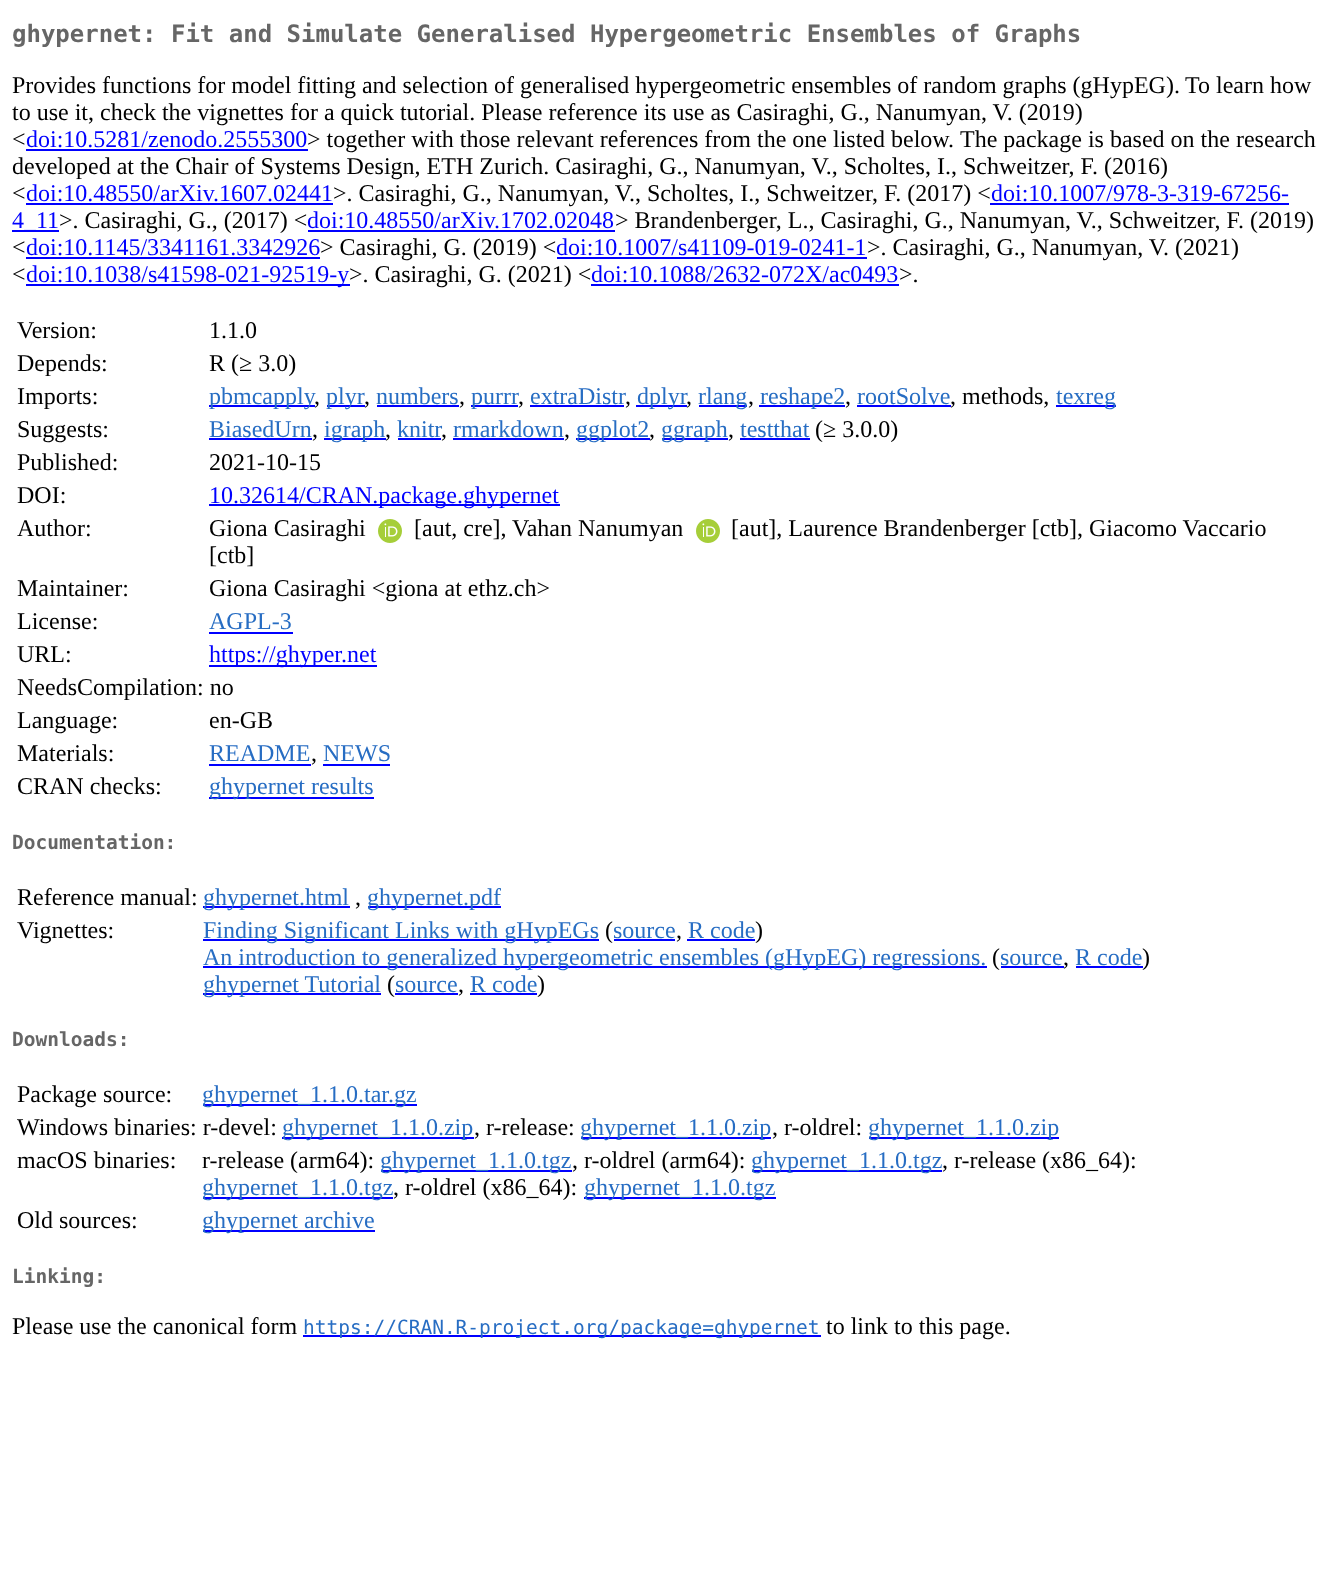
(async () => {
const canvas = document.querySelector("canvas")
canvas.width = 1333
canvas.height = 1580
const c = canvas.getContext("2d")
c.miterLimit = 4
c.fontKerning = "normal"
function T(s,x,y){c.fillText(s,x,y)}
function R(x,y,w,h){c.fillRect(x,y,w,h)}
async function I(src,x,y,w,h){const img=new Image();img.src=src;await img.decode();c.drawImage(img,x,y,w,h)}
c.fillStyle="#fff"
R(0,0,1333,1580)
c.font="bold 24px DejaVu Sans Mono"
c.fillStyle="#666"
T("ghypernet: Fit and Simulate Generalised Hypergeometric Ensembles of Graphs",12,42)
c.font="24px Liberation Serif"
c.fillStyle="#000"
T("Provides functions for model fitting and selection of generalised hypergeometric ensembles of random graphs (gHypEG).",12,93)
T("To learn how",1185,93)
T("to use it, check the vignettes for a quick tutorial. Please reference its use as Casiraghi, G., Nanumyan, V. (2019)",12,120)
T("<",12,147)
c.fillStyle="#00f"
T("doi:10.5281/zenodo.2555300",26,147)
R(26,149,282,2)
c.fillStyle="#000"
T("> together with those relevant references from the one listed below.",307,147)
T("The package is based on the research",960,147)
T("developed at the Chair of Systems Design, ETH Zurich. Casiraghi, G., Nanumyan, V., Scholtes, I., Schweitzer, F. (2016)",12,174)
T("<",12,201)
c.fillStyle="#00f"
T("doi:10.48550/arXiv.1607.02441",26,201)
R(26,203,307,2)
c.fillStyle="#000"
T(">. Casiraghi, G., Nanumyan, V., Scholtes, I., Schweitzer, F. (2017) <",333,201)
c.fillStyle="#00f"
T("doi:10.1007/978-3-319-67256-",991,201)
R(990,203,299,2)
R(12,230,47,2)
T("4_11",12,228)
c.fillStyle="#000"
T(">. Casiraghi, G., (2017) <",59,228)
c.fillStyle="#00f"
T("doi:10.48550/arXiv.1702.02048",307,228)
R(308,230,307,2)
c.fillStyle="#000"
T("> Brandenberger, L., Casiraghi, G., Nanumyan, V., Schweitzer, F. (2019)",615,228)
T("<",12,255)
c.fillStyle="#00f"
T("doi:10.1145/3341161.3342926",26,255)
R(26,257,294,2)
c.fillStyle="#000"
T("> Casiraghi, G. (2019) <",320,255)
c.fillStyle="#00f"
T("doi:10.1007/s41109-019-0241-1",556,255)
R(557,257,310,2)
c.fillStyle="#000"
T(">. Casiraghi, G., Nanumyan, V. (2021)",867,255)
T("<",12,282)
c.fillStyle="#00f"
R(26,284,324,2)
T("doi:10.1038/s41598-021-92519-y",26,282)
c.fillStyle="#000"
T(">. Casiraghi, G. (2021) <",349,282)
c.fillStyle="#00f"
T("doi:10.1088/2632-072X/ac0493",591,282)
R(591,284,308,2)
c.fillStyle="#000"
T(">.",899,282)
T("Version:",17,338)
T("1.1.0",209,338)
T("Depends:",17,371)
T("R (≥ 3.0)",209,371)
T("Imports:",17,404)
c.fillStyle="#00f"
R(209,405,106,2)
c.fillStyle="#276dc3"
T("pbmcapply",209,404)
c.fillStyle="#000"
T(",",314,404)
c.fillStyle="#00f"
R(327,405,38,2)
c.fillStyle="#276dc3"
T("plyr",326,404)
c.fillStyle="#000"
T(",",364,404)
c.fillStyle="#276dc3"
T("numbers",376,404)
c.fillStyle="#00f"
R(377,405,82,2)
c.fillStyle="#000"
T(",",459,404)
c.fillStyle="#00f"
R(471,405,47,2)
c.fillStyle="#276dc3"
T("purrr",471,404)
c.fillStyle="#000"
T(",",518,404)
c.fillStyle="#276dc3"
T("extraDistr",530,404)
c.fillStyle="#00f"
R(530,405,94,2)
c.fillStyle="#000"
T(",",625,404)
c.fillStyle="#00f"
R(636,405,51,2)
c.fillStyle="#276dc3"
T("dplyr",637,404)
c.fillStyle="#000"
T(",",686,404)
c.fillStyle="#00f"
R(699,405,48,2)
c.fillStyle="#276dc3"
T("rlang",698,404)
c.fillStyle="#000"
T(",",748,404)
c.fillStyle="#00f"
R(759,405,86,2)
c.fillStyle="#276dc3"
T("reshape2",760,404)
c.fillStyle="#000"
T(",",845,404)
c.fillStyle="#276dc3"
T("rootSolve",857,404)
c.fillStyle="#00f"
R(857,405,94,2)
c.fillStyle="#000"
T(", methods,",950,404)
c.fillStyle="#00f"
R(1056,405,60,2)
c.fillStyle="#276dc3"
T("texreg",1056,404)
c.fillStyle="#000"
T("Suggests:",17,437)
c.fillStyle="#276dc3"
T("BiasedUrn",209,437)
c.fillStyle="#00f"
R(209,438,103,2)
c.fillStyle="#000"
T(",",312,437)
c.fillStyle="#00f"
R(324,438,62,2)
c.fillStyle="#276dc3"
T("igraph",324,437)
c.fillStyle="#000"
T(",",385,437)
c.fillStyle="#276dc3"
T("knitr",397,437)
c.fillStyle="#00f"
R(398,438,43,2)
c.fillStyle="#000"
T(",",441,437)
c.fillStyle="#276dc3"
T("rmarkdown",453,437)
c.fillStyle="#00f"
R(453,438,111,2)
c.fillStyle="#000"
T(",",564,437)
c.fillStyle="#00f"
R(576,438,74,2)
c.fillStyle="#276dc3"
T("ggplot2",576,437)
c.fillStyle="#000"
T(",",649,437)
c.fillStyle="#00f"
R(662,438,66,2)
c.fillStyle="#276dc3"
T("ggraph",661,437)
c.fillStyle="#000"
T(",",728,437)
c.fillStyle="#276dc3"
T("testthat",740,437)
c.fillStyle="#00f"
R(740,438,70,2)
c.fillStyle="#000"
T("(≥ 3.0.0)",815,437)
T("Published:",17,470)
T("2021-10-15",209,470)
T("DOI:",17,503)
c.fillStyle="#00f"
R(209,504,351,2)
T("10.32614/CRAN.package.ghypernet",209,503)
c.fillStyle="#000"
T("Author:",17,536)
T("Giona Casiraghi",209,536)
await I("1.png",378,519,24,24)
T("[aut, cre],",414,536)
T("Vahan Nanumyan",512,536)
await I("1.png",696,519,24,24)
T("[aut], Laurence Brandenberger [ctb], Giacomo Vaccario",731,536)
T("[ctb]",209,563)
T("Maintainer:",17,596)
T("Giona Casiraghi <giona at ethz.ch>",209,596)
T("License:",17,629)
c.fillStyle="#276dc3"
T("AGPL-3",209,629)
c.fillStyle="#00f"
R(209,632,84,2)
c.fillStyle="#000"
T("URL:",17,662)
c.fillStyle="#00f"
R(209,665,168,2)
T("https://ghyper.net",209,662)
c.fillStyle="#000"
T("NeedsCompilation: no",17,695)
T("Language:",17,728)
T("en-GB",209,728)
T("Materials:",17,761)
c.fillStyle="#276dc3"
T("README",209,761)
c.fillStyle="#00f"
R(209,764,102,2)
c.fillStyle="#000"
T(",",311,761)
c.fillStyle="#276dc3"
T("NEWS",323,761)
c.fillStyle="#00f"
R(323,764,67,2)
c.fillStyle="#000"
T("CRAN checks:",17,794)
c.fillStyle="#00f"
R(209,797,165,2)
c.fillStyle="#276dc3"
T("ghypernet results",209,794)
c.font="bold 19.5px DejaVu Sans Mono"
c.fillStyle="#666"
T("Documentation:",12,849)
c.font="24px Liberation Serif"
c.fillStyle="#000"
T("Reference manual:",17,905)
c.fillStyle="#00f"
R(203,906,147,2)
c.fillStyle="#276dc3"
T("ghypernet.html",203,905)
c.fillStyle="#000"
T(",",355,905)
c.fillStyle="#00f"
R(368,906,133,2)
c.fillStyle="#276dc3"
T("ghypernet.pdf",367,905)
c.fillStyle="#000"
T("Vignettes:",17,938)
c.fillStyle="#00f"
R(203,939,396,2)
c.fillStyle="#276dc3"
T("Finding Significant Links with gHypEGs",203,938)
c.fillStyle="#000"
T("(",605,938)
c.fillStyle="#276dc3"
T("source",613,938)
c.fillStyle="#00f"
R(614,939,61,2)
c.fillStyle="#000"
T(",",676,938)
c.fillStyle="#276dc3"
T("R code",688,938)
c.fillStyle="#00f"
R(687,939,68,2)
c.fillStyle="#000"
T(")",755,938)
c.fillStyle="#00f"
R(203,966,784,2)
c.fillStyle="#276dc3"
T("An introduction to generalized hypergeometric ensembles (gHypEG) regressions.",203,965)
c.fillStyle="#000"
T("(",992,965)
c.fillStyle="#276dc3"
T("source",1000,965)
c.fillStyle="#00f"
R(1001,966,63,2)
c.fillStyle="#000"
T(",",1063,965)
c.fillStyle="#276dc3"
T("R code",1075,965)
c.fillStyle="#00f"
R(1076,966,67,2)
c.fillStyle="#000"
T(")",1142,965)
c.fillStyle="#00f"
R(203,993,178,2)
c.fillStyle="#276dc3"
T("ghypernet Tutorial",203,992)
c.fillStyle="#000"
T("(",387,992)
c.fillStyle="#276dc3"
T("source",395,992)
c.fillStyle="#00f"
R(395,993,63,2)
c.fillStyle="#000"
T(",",458,992)
c.fillStyle="#276dc3"
T("R code",470,992)
c.fillStyle="#00f"
R(470,993,67,2)
c.fillStyle="#000"
T(")",537,992)
c.font="bold 19.5px DejaVu Sans Mono"
c.fillStyle="#666"
T("Downloads:",12,1046)
c.font="24px Liberation Serif"
c.fillStyle="#000"
T("Package source:",17,1102)
c.fillStyle="#00f"
R(203,1104,214,2)
c.fillStyle="#276dc3"
T("ghypernet_1.1.0.tar.gz",202,1102)
c.fillStyle="#000"
T("Windows binaries: r-devel:",17,1135)
c.fillStyle="#00f"
R(282,1137,192,2)
c.fillStyle="#276dc3"
T("ghypernet_1.1.0.zip",282,1135)
c.fillStyle="#000"
T(", r-release:",474,1135)
c.fillStyle="#00f"
R(581,1137,190,2)
c.fillStyle="#276dc3"
T("ghypernet_1.1.0.zip",580,1135)
c.fillStyle="#000"
T(", r-oldrel:",772,1135)
c.fillStyle="#00f"
R(869,1137,190,2)
c.fillStyle="#276dc3"
T("ghypernet_1.1.0.zip",868,1135)
c.fillStyle="#000"
T("macOS binaries:",17,1168)
T("r-release (arm64):",202,1168)
c.fillStyle="#00f"
R(381,1170,191,2)
c.fillStyle="#276dc3"
T("ghypernet_1.1.0.tgz",380,1168)
c.fillStyle="#000"
T(", r-oldrel (arm64):",572,1168)
c.fillStyle="#00f"
R(752,1170,190,2)
c.fillStyle="#276dc3"
T("ghypernet_1.1.0.tgz",751,1168)
c.fillStyle="#000"
T(", r-release (x86_64):",942,1168)
c.fillStyle="#00f"
R(203,1197,190,2)
c.fillStyle="#276dc3"
T("ghypernet_1.1.0.tgz",202,1195)
c.fillStyle="#000"
T(", r-oldrel (x86_64):",393,1195)
c.fillStyle="#00f"
R(584,1197,192,2)
c.fillStyle="#276dc3"
T("ghypernet_1.1.0.tgz",584,1195)
c.fillStyle="#000"
T("Old sources:",17,1228)
c.fillStyle="#00f"
R(203,1230,172,2)
c.fillStyle="#276dc3"
T("ghypernet archive",202,1228)
c.font="bold 19.5px DejaVu Sans Mono"
c.fillStyle="#666"
T("Linking:",12,1283)
c.font="24px Liberation Serif"
c.fillStyle="#000"
T("Please use the canonical form",12,1334)
c.fillStyle="#00f"
R(303,1335,518,2)
c.font="19.5px DejaVu Sans Mono"
c.fillStyle="#276dc3"
T("https://CRAN.R-project.org/package=ghypernet",303,1334)
c.font="24px Liberation Serif"
c.fillStyle="#000"
T("to link to this page.",826,1334)
})()
